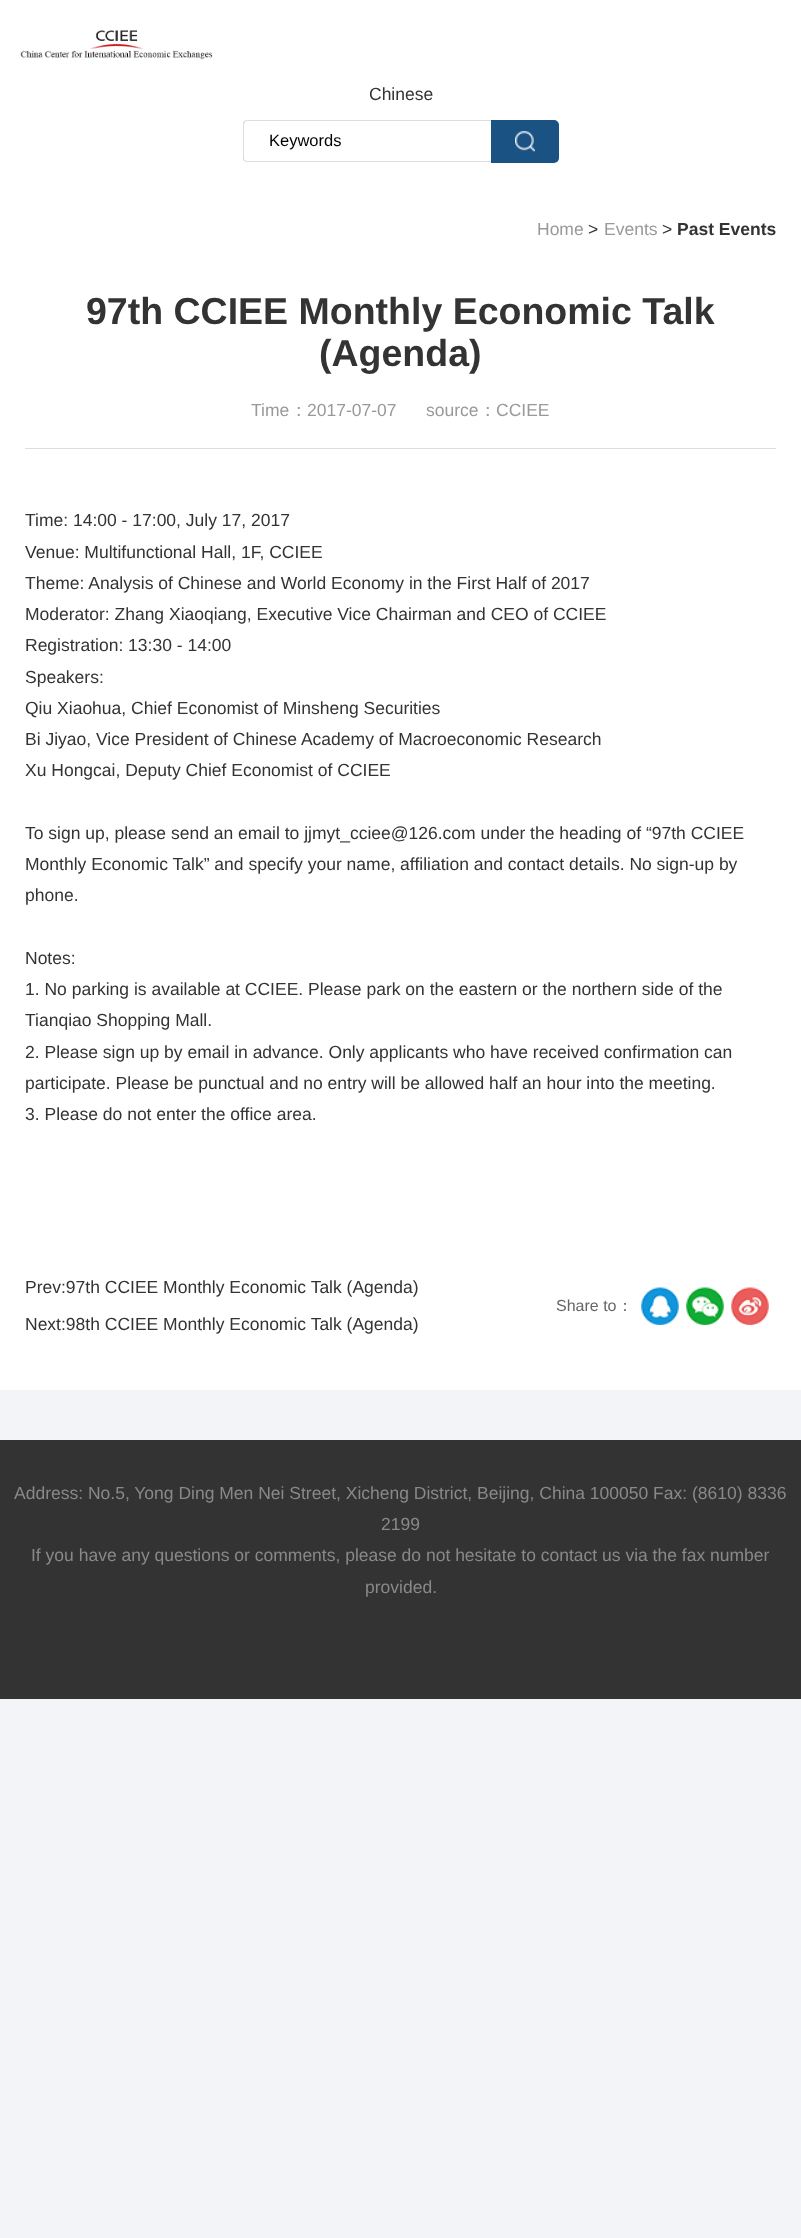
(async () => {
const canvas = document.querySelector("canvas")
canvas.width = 801
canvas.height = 2238
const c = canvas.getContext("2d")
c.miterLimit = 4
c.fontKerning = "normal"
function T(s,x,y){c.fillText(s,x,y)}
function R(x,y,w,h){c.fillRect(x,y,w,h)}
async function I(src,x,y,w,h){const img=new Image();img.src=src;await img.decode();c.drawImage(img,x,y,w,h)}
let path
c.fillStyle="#f2f4f7"
R(0,0,801,2238)
c.fillStyle="#fff"
R(0,0,801,1390)
await I("1.png",20,30,193,30)
c.font="17.5px Liberation Sans"
c.fillStyle="#333"
T("Chinese",369,100)
c.save()
c.beginPath()
c.rect(243,120,316,43)
c.clip()
c.fillStyle="#ddd"
path = new Path2D("M248 120h243v42h-243c-3 0-6-2-6-4v-33c0-3 3-5 6-5zm0 1h243v40h-243c-3 0-4-1-4-3v-33c0-2 1-4 4-4z")
c.fill(path,"evenodd")
c.restore()
c.font="16.5px Liberation Sans"
c.fillStyle="#000"
T("Keywords",269,146)
c.fillStyle="#1a5284"
c.beginPath()
c.roundRect(491,120,68,43,[0,5,5,0])
c.fill()
await I("2.png",515,131,20,21)
c.font="17.5px Liberation Sans"
c.fillStyle="#999"
T("Home",537,235)
c.fillStyle="#333"
T(">",588,235)
c.fillStyle="#999"
T("Events",604,235)
c.fillStyle="#333"
T(">",662,235)
c.font="bold 17.5px Liberation Sans"
T("Past Events",677,235)
c.font="bold 37.5px Liberation Sans"
T("97th CCIEE Monthly Economic Talk",86,324)
T("(Agenda)",319,366)
c.fillStyle="#ddd"
R(25,448,751,1)
c.font="17.5px Liberation Sans"
c.fillStyle="#999"
T("Time",251,416)
c.font="500 17.5px WenQuanYi Zen Hei"
T("：",290,416)
c.font="17.5px Liberation Sans"
T("2017-07-07",307,416)
T("source",426,416)
c.font="500 17.5px WenQuanYi Zen Hei"
T("：",479,416)
c.font="17.5px Liberation Sans"
T("CCIEE",496,416)
c.fillStyle="#333"
T("Time: 14:00 - 17:00, July 17, 2017",25,526)
T("Venue: Multifunctional Hall, 1F, CCIEE",25,558)
T("Theme: Analysis of Chinese and World Economy in the First Half of 2017",25,589)
T("Moderator: Zhang Xiaoqiang, Executive Vice Chairman and CEO of CCIEE",25,620)
T("Registration: 13:30 - 14:00",25,651)
T("Speakers:",25,683)
T("Qiu Xiaohua, Chief Economist of Minsheng Securities",25,714)
T("Bi Jiyao, Vice President of Chinese Academy of Macroeconomic Research",25,745)
T("Xu Hongcai, Deputy Chief Economist of CCIEE",25,776)
T("To sign up, please send an email to jjmyt_cciee@126.com under the heading of “97th CCIEE",25,839)
T("Monthly Economic Talk” and specify your name, affiliation and contact details. No sign-up by",25,870)
T("phone.",25,901)
T("Notes:",25,964)
T("1. No parking is available at CCIEE. Please park on the eastern or the northern side of the",25,995)
T("Tianqiao Shopping Mall.",25,1026)
T("2. Please sign up by email in advance. Only applicants who have received confirmation can",25,1058)
T("participate. Please be punctual and no entry will be allowed half an hour into the meeting.",25,1089)
T("3. Please do not enter the office area.",25,1120)
T("Prev:97th CCIEE Monthly Economic Talk (Agenda)",25,1293)
T("Next:98th CCIEE Monthly Economic Talk (Agenda)",25,1330)
c.font="16px Liberation Sans"
c.fillStyle="#666"
T("Share to",556,1311)
c.font="500 16px WenQuanYi Zen Hei"
T("：",617,1311)
await I("3.png",641,1287,38,38)
await I("4.png",686,1287,38,38)
await I("5.png",731,1287,38,38)
c.fillStyle="#333"
R(0,1440,801,259)
c.font="17.5px Liberation Sans"
c.fillStyle="#898989"
T("Address: No.5, Yong Ding Men Nei Street, Xicheng District, Beijing, China 100050 Fax: (8610) 8336",14,1499)
T("2199",381,1530)
T("If you have any questions or comments, please do not hesitate to contact us via the fax number",31,1561)
T("provided.",365,1593)
})()
